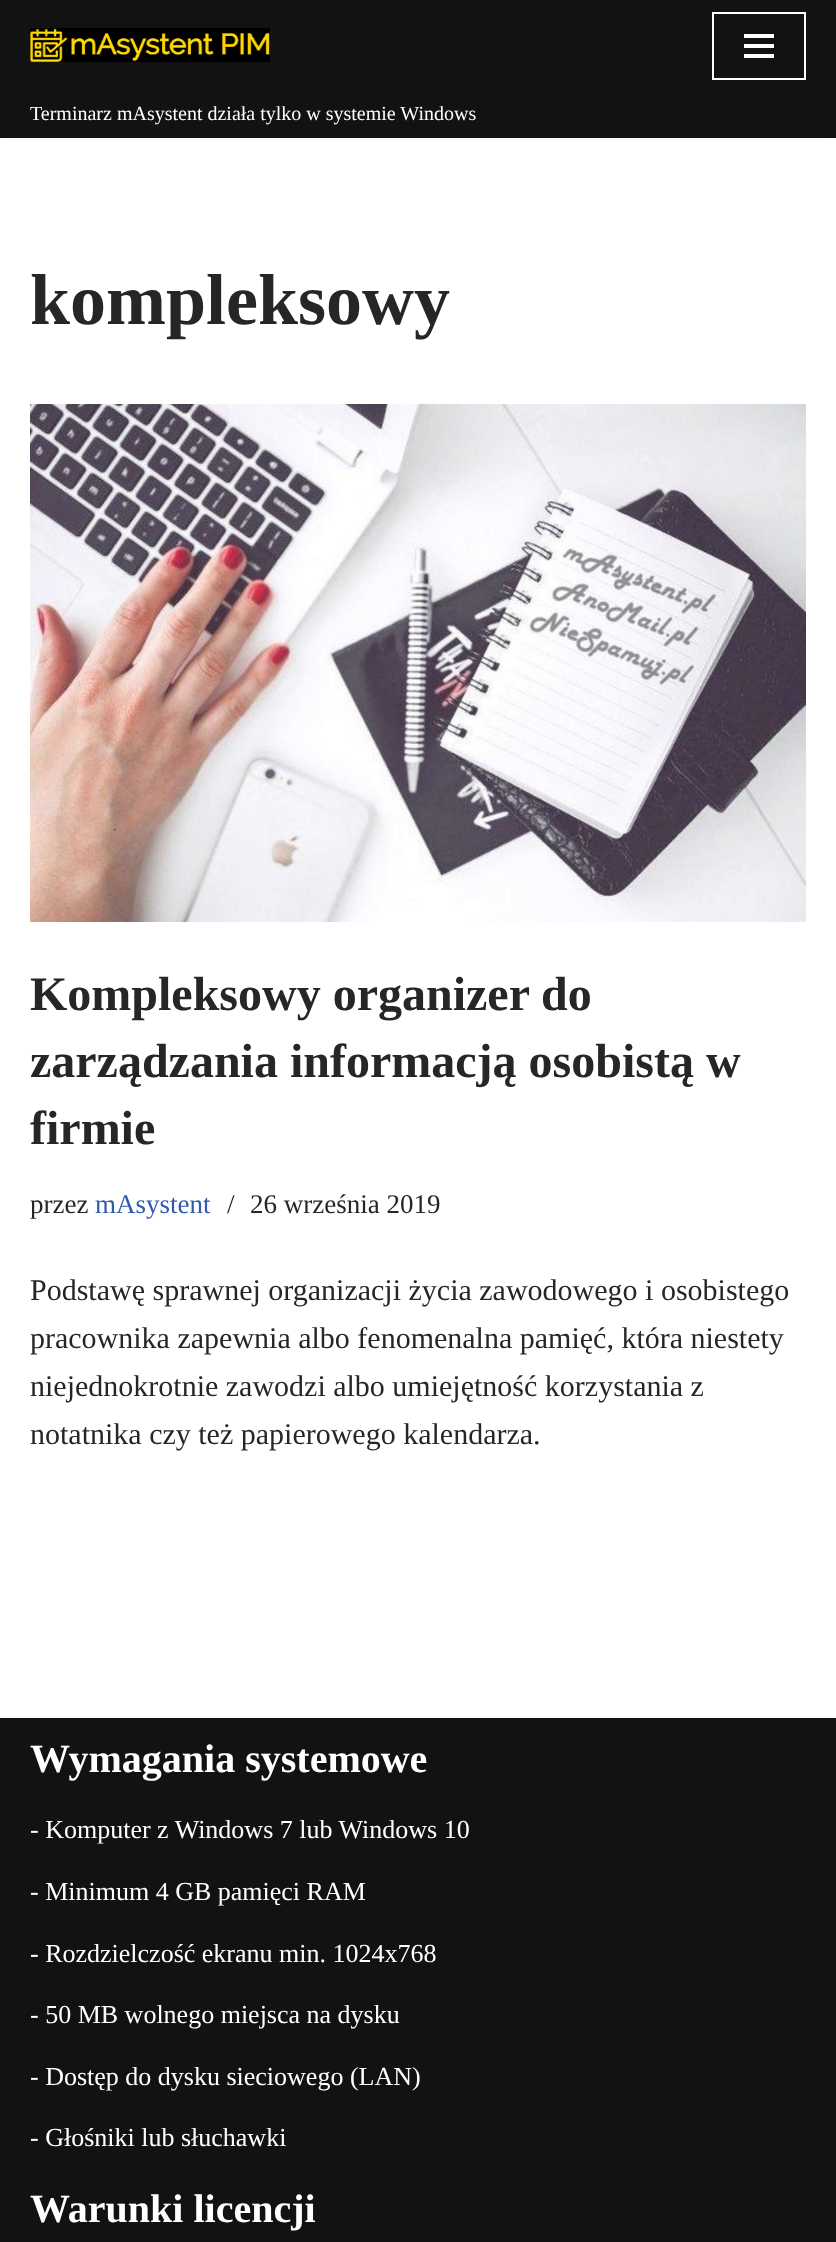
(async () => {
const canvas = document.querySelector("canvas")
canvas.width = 836
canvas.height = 2242
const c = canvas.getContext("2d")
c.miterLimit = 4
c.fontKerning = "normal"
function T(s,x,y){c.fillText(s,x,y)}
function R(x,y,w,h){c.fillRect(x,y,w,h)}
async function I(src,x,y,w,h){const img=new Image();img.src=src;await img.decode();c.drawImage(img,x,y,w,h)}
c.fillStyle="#fff"
R(0,0,836,2242)
c.fillStyle="#0000001a"
c.filter="blur(3px)"
c.beginPath()
c.rect(0,-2,836,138)
c.fill()
c.filter="none"
c.fillStyle="#121212"
R(0,0,836,138)
await I("1.png",30,28,240,34)
c.strokeStyle="#fff"
c.lineWidth=2
c.strokeRect(713,13,92,66)
c.fillStyle="#fff"
R(744,34,30,4)
R(744,44,30,4)
R(744,54,30,4)
c.font="20px Liberation Serif"
T("Terminarz mAsystent działa tylko w systemie Windows",30,120)
c.font="bold 72px Liberation Serif"
c.fillStyle="#272626"
T("kompleksowy",30,324)
await I("2.png",30,404,776,518)
c.font="bold 48px Liberation Serif"
T("Kompleksowy organizer do",30,1010)
T("zarządzania informacją osobistą w",30,1077)
T("firmie",30,1144)
c.font="27px Liberation Serif"
T("przez",30,1213)
c.fillStyle="#2f5aae"
T("mAsystent",95,1213)
c.fillStyle="#272626"
T("/",227,1213)
T("26 września 2019",250,1213)
c.font="30px Liberation Serif"
T("Podstawę sprawnej organizacji życia zawodowego i osobistego",30,1300)
T("pracownika zapewnia albo fenomenalna pamięć, która niestety",30,1348)
T("niejednokrotnie zawodzi albo umiejętność korzystania z",30,1396)
T("notatnika czy też papierowego kalendarza.",30,1444)
c.fillStyle="#121212"
R(0,1718,836,524)
c.font="bold 40px Liberation Serif"
c.fillStyle="#fff"
T("Wymagania systemowe",30,1772)
c.font="26px Liberation Serif"
T("- Komputer z Windows 7 lub Windows 10",30,1838)
T("- Minimum 4 GB pamięci RAM",30,1900)
T("- Rozdzielczość ekranu min. 1024x768",30,1962)
T("- 50 MB wolnego miejsca na dysku",30,2023)
T("- Dostęp do dysku sieciowego (LAN)",30,2085)
T("- Głośniki lub słuchawki",30,2146)
c.font="bold 40px Liberation Serif"
T("Warunki licencji",30,2222)
})()
